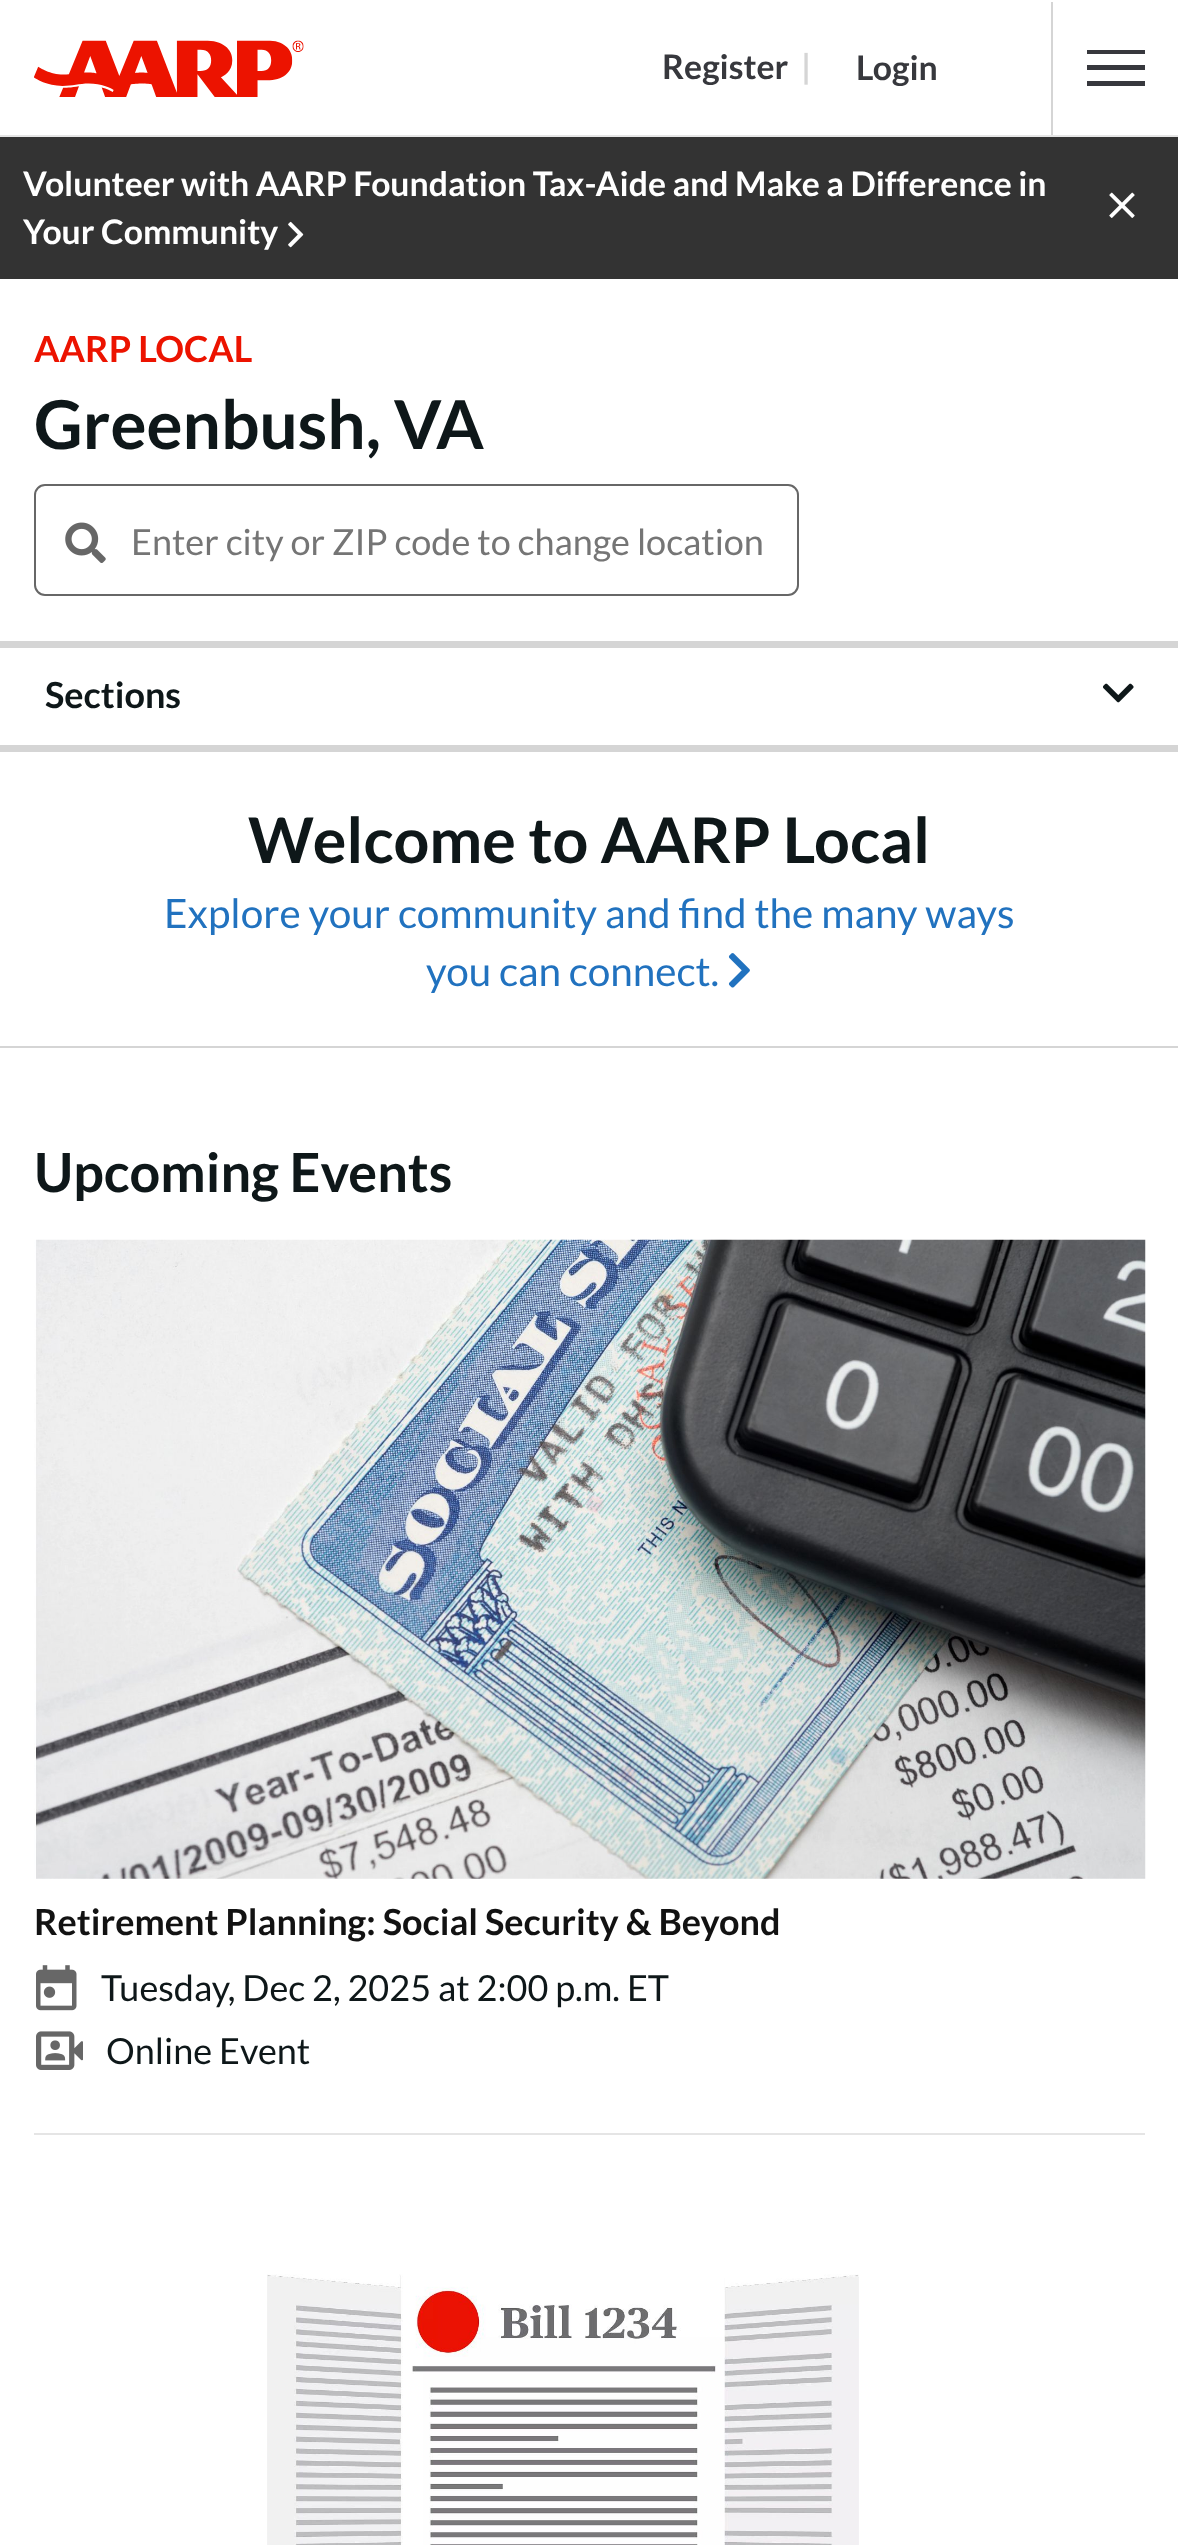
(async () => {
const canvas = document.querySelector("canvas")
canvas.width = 1178
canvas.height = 2545
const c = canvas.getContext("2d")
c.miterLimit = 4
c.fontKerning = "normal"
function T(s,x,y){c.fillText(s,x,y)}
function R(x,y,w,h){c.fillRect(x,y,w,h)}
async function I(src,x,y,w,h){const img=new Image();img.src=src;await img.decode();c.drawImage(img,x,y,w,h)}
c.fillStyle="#fff"
R(0,0,1178,2545)
c.fillStyle="#e5e5e5"
R(0,135,1178,2)
await I("1.png",34,40,270,57)
c.font="bold 33.75px Lato"
c.fillStyle="#37383d"
T("Register",662,79)
c.fillStyle="#d5d5d5"
T("|",801,79)
R(1051,2,2,133)
c.fillStyle="#37383d"
T("Login",856,80)
R(1087,50,58,4)
R(1087,65,58,5)
R(1087,81,58,5)
c.fillStyle="#333"
R(0,137,1178,142)
c.fillStyle="#fff"
T("Volunteer with AARP Foundation Tax-Aide and Make a Difference in",23,196)
T("Your Community",23,244)
await I("2.png",288,221,16,27)
await I("3.png",1109,192,26,26)
c.font="bold 36px Lato"
c.fillStyle="#ec1300"
T("AARP LOCAL",34,362)
c.font="bold 67.5px Lato"
c.fillStyle="#0e1719"
T("Greenbush, VA",34,449)
c.beginPath()
c.roundRect(35,485,763,110,10)
c.strokeStyle="#676767"
c.lineWidth=2
c.stroke()
await I("4.png",65,522,41,41)
c.font="36px Lato"
c.fillStyle="#757575"
T("Enter city or ZIP code to change location",131,555)
c.fillStyle="#d5d5d5"
R(0,641,1178,7)
R(0,745,1178,7)
c.font="bold 36px Lato"
c.fillStyle="#0e1719"
T("Sections",45,708)
await I("5.png",1103,683,31,20)
c.fillStyle="#d5d5d5"
R(0,1046,1178,2)
c.font="bold 63px Lato"
c.fillStyle="#0e1719"
T("Welcome to AARP Local",248,863)
c.font="40.5px Lato"
c.fillStyle="#2172bf"
T("Explore your community and find the many ways",164,928)
T("you can connect.",426,986)
await I("6.png",728,953,22,35)
c.font="bold 54px Lato"
c.fillStyle="#0e1719"
T("Upcoming Events",34,1192)
await I("7.png",34,1239,1112,640)
c.font="bold 36px Lato"
c.fillStyle="#121212"
T("Retirement Planning: Social Security & Beyond",34,1935)
await I("8.png",36,1965,41,46)
c.font="36px Lato"
c.fillStyle="#0e1719"
T("Tuesday, Dec 2, 2025 at 2:00 p.m. ET",101,2001)
await I("9.png",36,2031,47,39)
T("Online Event",106,2064)
c.fillStyle="#e5e5e5"
R(34,2133,1111,2)
await I("10.png",267,2274,592,271)
})()
